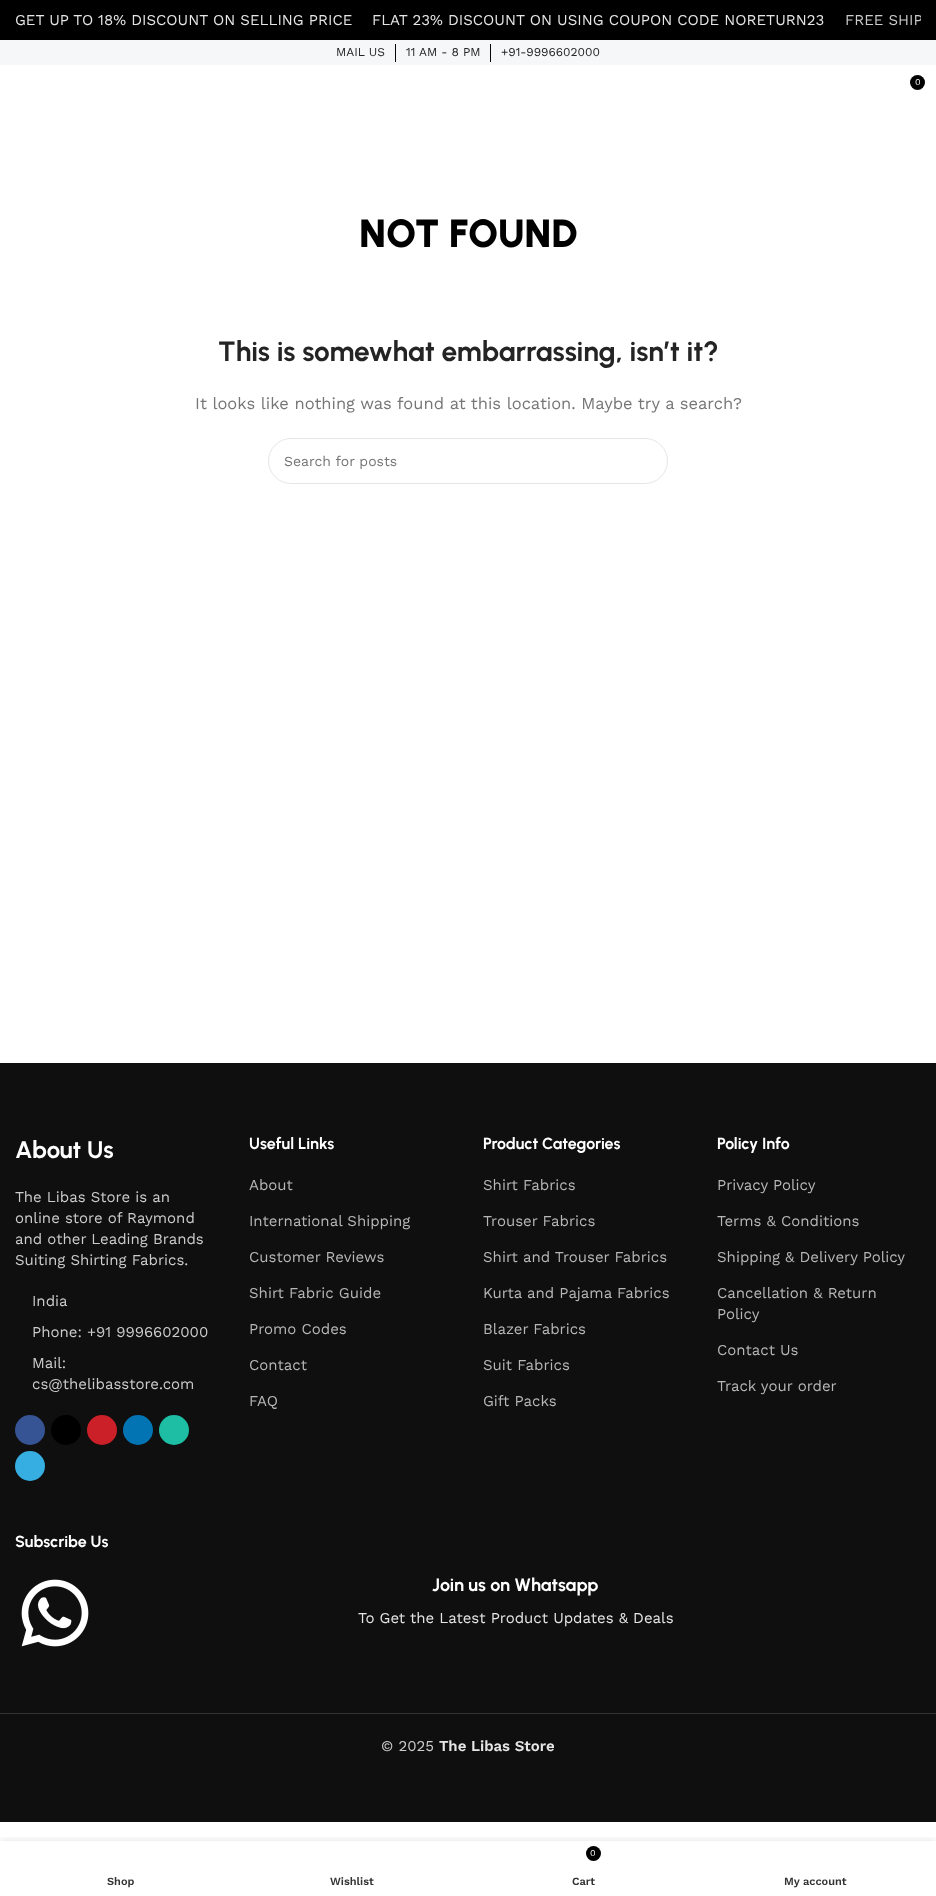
(async () => {
const canvas = document.querySelector("canvas")
canvas.width = 936
canvas.height = 1896
const c = canvas.getContext("2d")
c.miterLimit = 4
c.fontKerning = "normal"
function T(s,x,y){c.fillText(s,x,y)}
function R(x,y,w,h){c.fillRect(x,y,w,h)}
async function I(src,x,y,w,h){const img=new Image();img.src=src;await img.decode();c.drawImage(img,x,y,w,h)}
c.fillStyle="#fff"
R(0,0,936,1896)
c.fillStyle="#000"
R(0,0,936,40)
c.font="15px Work Sans"
c.fillStyle="#e6e6e6"
T("GET UP TO 18% DISCOUNT ON SELLING PRICE",15,25)
T("FLAT 23% DISCOUNT ON USING COUPON CODE NORETURN23",372,25)
c.save()
c.beginPath()
c.rect(15,0,906,32)
c.clip()
c.fillStyle="#ccc"
T("FREE SHIP",845,25)
c.restore()
c.fillStyle="#f5f7f8"
R(0,40,936,25)
c.font="12px Work Sans"
c.fillStyle="#242424"
T("MAIL US",336,56)
c.fillStyle="#070707"
R(395,44,1,18)
c.fillStyle="#242424"
T("11 AM - 8 PM",406,56)
c.fillStyle="#070707"
R(490,44,1,18)
c.fillStyle="#242424"
T("+91-9996602000",501,56)
c.fillStyle="#000"
c.beginPath()
c.arc(917.5,82.5,7.5,0,7)
c.fill()
c.font="9px Work Sans"
c.fillStyle="#fff"
T("0",915,85)
c.font="900 39.25px Urbanist"
c.fillStyle="#000"
T("NOT FOUND",359,247)
c.font="bold 28px Urbanist"
c.fillStyle="#242424"
T("This is somewhat embarrassing, isn’t it?",218,361)
c.font="16.5px Work Sans"
c.fillStyle="#767676"
T("It looks like nothing was found at this location. Maybe try a search?",195,409)
c.beginPath()
c.roundRect(268.5,438.5,399,45,22.5)
c.strokeStyle="#e6e6e6"
c.stroke()
c.font="14px Work Sans"
T("Search for posts",284,466)
c.fillStyle="#0f0f0f"
R(0,1063,936,759)
c.font="bold 24px Urbanist"
c.fillStyle="#fff"
T("About Us",15,1158)
c.font="15px Work Sans"
c.fillStyle="#ccc"
T("The Libas Store is an",15,1202)
T("online store of Raymond",15,1223)
T("and other Leading Brands",15,1244)
T("Suiting Shirting Fabrics.",15,1265)
T("India",32,1306)
T("Phone: +91 9996602000",32,1337)
T("Mail:",32,1368)
T("cs@thelibasstore.com",32,1389)
c.fillStyle="#365493"
c.beginPath()
c.arc(30,1430,15,0,7)
c.fill()
c.fillStyle="#000"
c.beginPath()
c.arc(66,1430,15,0,7)
c.fill()
c.fillStyle="#cb2027"
c.beginPath()
c.arc(102,1430,15,0,7)
c.fill()
c.fillStyle="#0274b3"
c.beginPath()
c.arc(138,1430,15,0,7)
c.fill()
c.fillStyle="#1ebea5"
c.beginPath()
c.arc(174,1430,15,0,7)
c.fill()
c.fillStyle="#37aee2"
c.beginPath()
c.arc(30,1466,15,0,7)
c.fill()
c.font="bold 16px Urbanist"
c.fillStyle="#fff"
T("Useful Links",249,1149)
c.font="15px Work Sans"
c.fillStyle="#b7b7b7"
T("About",249,1190)
T("International Shipping",249,1226)
T("Customer Reviews",249,1262)
T("Shirt Fabric Guide",249,1298)
T("Promo Codes",249,1334)
T("Contact",249,1370)
T("FAQ",249,1406)
c.font="bold 16px Urbanist"
c.fillStyle="#fff"
T("Product Categories",483,1149)
c.font="15px Work Sans"
c.fillStyle="#b7b7b7"
T("Shirt Fabrics",483,1190)
T("Trouser Fabrics",483,1226)
T("Shirt and Trouser Fabrics",483,1262)
T("Kurta and Pajama Fabrics",483,1298)
T("Blazer Fabrics",483,1334)
T("Suit Fabrics",483,1370)
T("Gift Packs",483,1406)
c.font="bold 16px Urbanist"
c.fillStyle="#fff"
T("Policy Info",717,1149)
c.font="15px Work Sans"
c.fillStyle="#b7b7b7"
T("Privacy Policy",717,1190)
T("Terms & Conditions",717,1226)
T("Shipping & Delivery Policy",717,1262)
T("Cancellation & Return",717,1298)
T("Policy",717,1319)
T("Contact Us",717,1355)
T("Track your order",717,1391)
c.font="bold 16px Urbanist"
c.fillStyle="#fff"
T("Subscribe Us",15,1547)
await I("1.png",21,1579,68,68)
c.font="bold 18px Urbanist"
T("Join us on Whatsapp",432,1591)
c.font="15px Work Sans"
c.fillStyle="#e6e6e6"
T("To Get the Latest Product Updates & Deals",358,1623)
c.fillStyle="#333"
R(0,1713,936,1)
c.fillStyle="#ccc"
T("© 2025",381,1751)
c.font="600 15px Work Sans"
c.fillStyle="#e6e6e6"
T("The Libas Store",439,1751)
c.save()
c.beginPath()
c.rect(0,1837,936,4)
c.clip()
c.fillStyle="#0000001f"
c.filter="blur(4.5px)"
c.beginPath()
c.rect(0,1841,936,55)
c.fill()
c.filter="none"
c.restore()
c.font="600 11px Work Sans"
c.fillStyle="#333"
T("Shop",107,1885)
T("Wishlist",330,1885)
c.fillStyle="#000"
c.beginPath()
c.arc(593.5,1853.5,7.5,0,7)
c.fill()
c.font="9px Work Sans"
c.fillStyle="#fff"
T("0",590,1856)
c.font="600 11px Work Sans"
c.fillStyle="#333"
T("Cart",572,1885)
T("My account",784,1885)
})()
